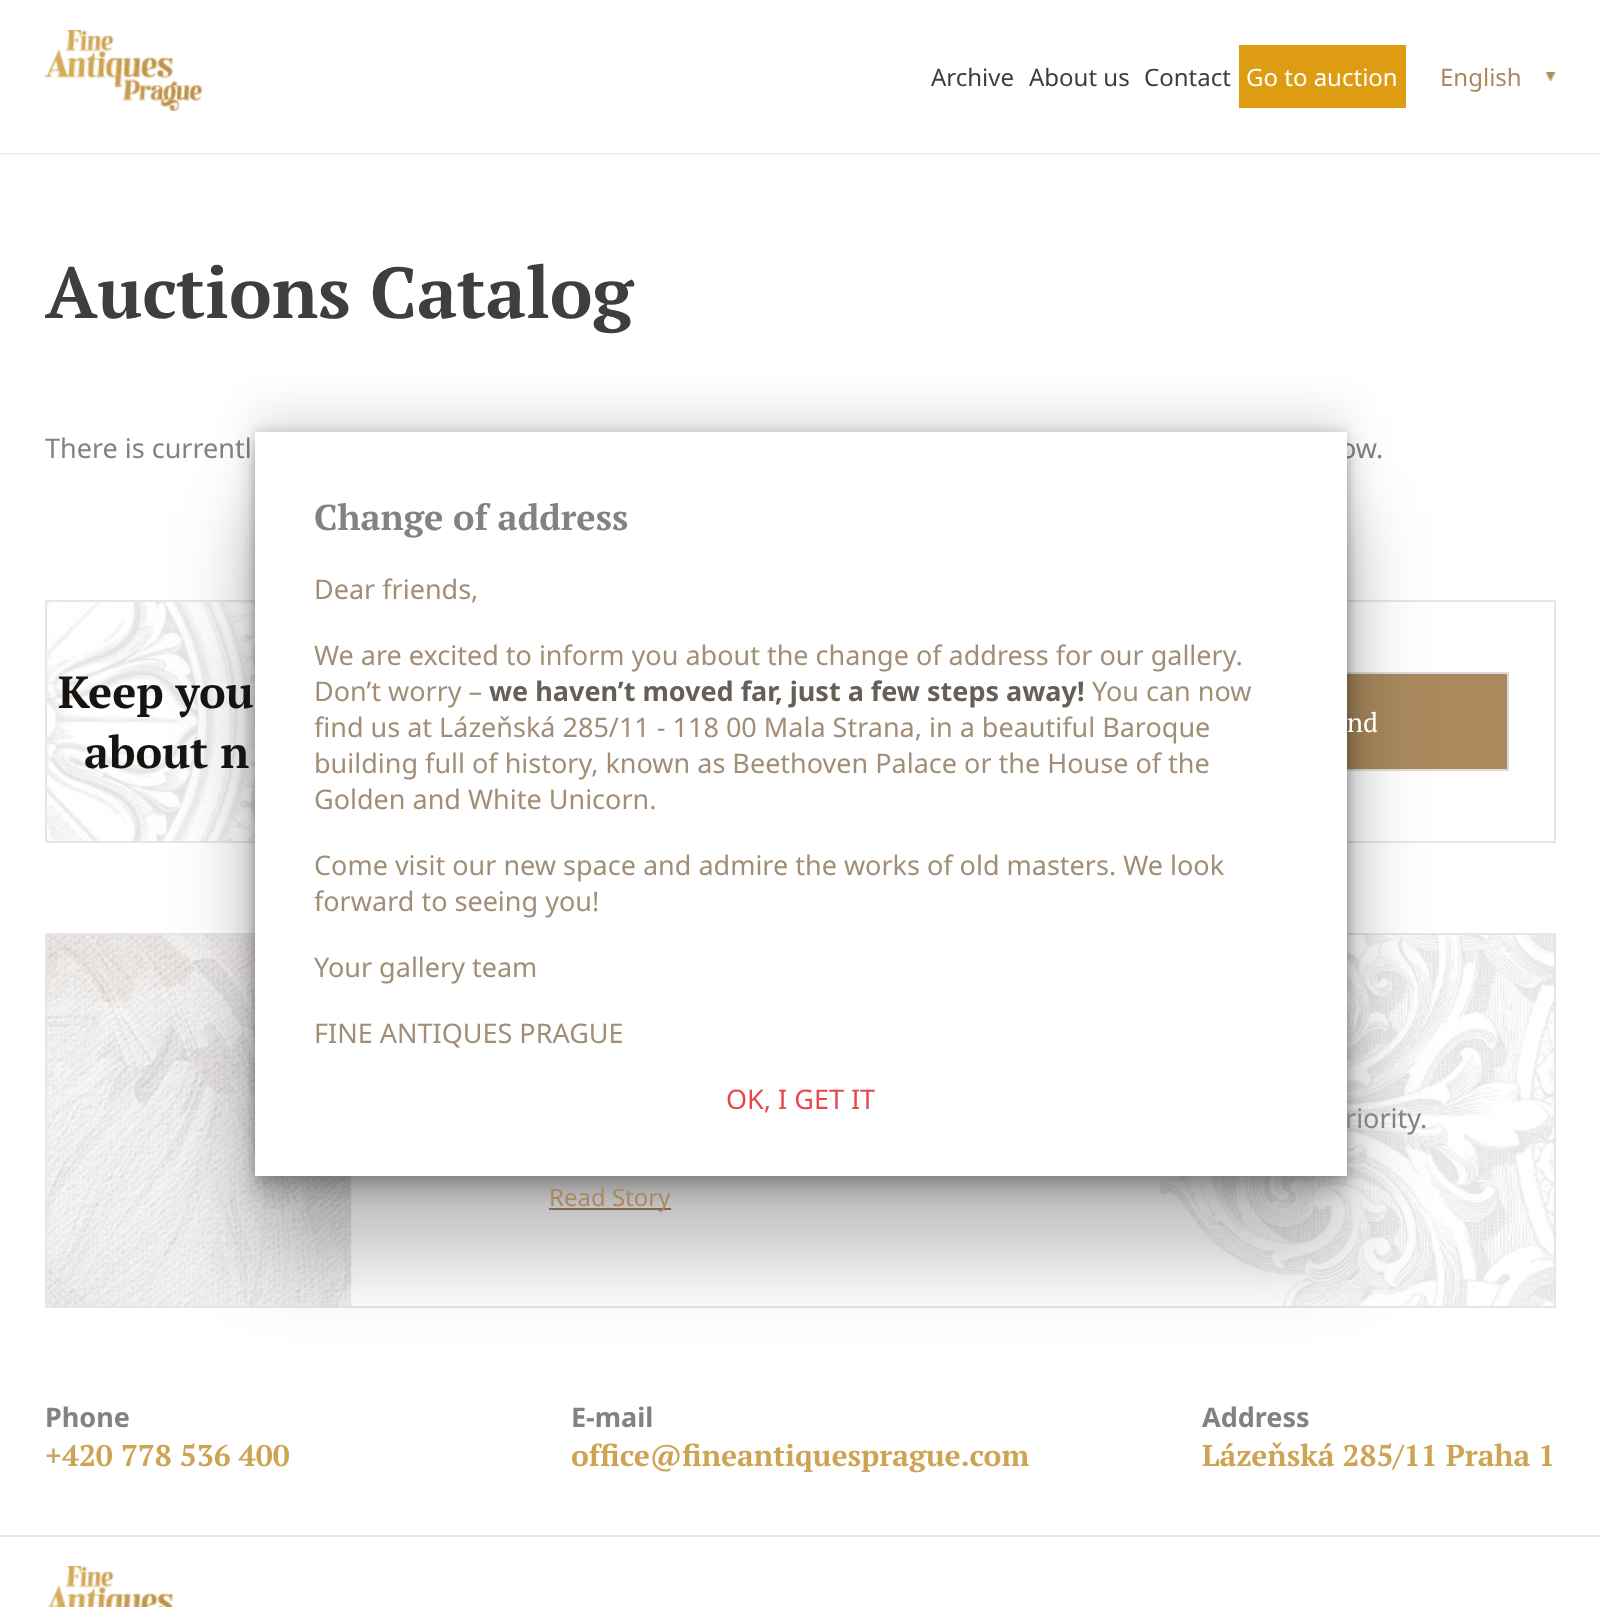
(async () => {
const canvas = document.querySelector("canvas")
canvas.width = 1600
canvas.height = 1607
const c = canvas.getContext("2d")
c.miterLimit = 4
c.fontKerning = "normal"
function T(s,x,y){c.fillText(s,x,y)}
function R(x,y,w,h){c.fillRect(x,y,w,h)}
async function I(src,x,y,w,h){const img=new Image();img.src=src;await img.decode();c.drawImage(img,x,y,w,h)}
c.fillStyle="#fff"
R(0,0,1600,1607)
c.fillStyle="#efefef"
R(0,153,1600,2)
await I("1.png",45,30,158,81)
c.font="24px Noto Sans"
c.fillStyle="#3e3e3e"
T("Archive",931,86)
T("About us",1029,86)
T("Contact",1144,86)
c.fillStyle="#dd9c11"
R(1239,45,167,63)
c.fillStyle="#fff"
T("Go to auction",1246,86)
await I("2.png",1545,72,11,9)
c.fillStyle="#aa8a5d"
T("English",1440,86)
c.font="bold 72px PT Serif"
c.fillStyle="#3e3e3e"
T("Auctions Catalog",45,318)
c.font="27px Noto Sans"
c.fillStyle="#828282"
T("There is currentl",45,458)
T("ow.",1340,458)
await I("3.png",47,602,208,239)
c.strokeStyle="#e6e6e6"
c.lineWidth=2
c.strokeRect(46,601,1509,241)
c.fillStyle="#aa8a5d"
R(1347,674,160,95)
c.strokeStyle="#dedcd9"
c.strokeRect(1191,673,317,97)
await I("4.png",47,935,1507,371)
c.strokeStyle="#e6e6e6"
c.strokeRect(46,934,1509,373)
c.fillStyle="#00000017"
c.filter="blur(4px)"
c.beginPath()
c.rect(255,428,1092,744)
c.fill()
c.filter="none"
c.fillStyle="#aa8a5d"
R(549,1208,122,2)
c.fillStyle="#0000002b"
c.filter="blur(10px)"
c.beginPath()
c.rect(255,450,1092,744)
c.fill()
c.filter="none"
c.fillStyle="#0000001f"
c.filter="blur(4.5px)"
c.beginPath()
c.rect(255,438,1092,744)
c.fill()
c.filter="none"
c.filter="blur(22.5px)"
c.beginPath()
c.rect(255,414,1092,744)
c.fill()
c.filter="none"
c.fillStyle="#00000040"
c.filter="blur(41px)"
c.beginPath()
c.rect(255,513,1092,744)
c.fill()
c.filter="none"
c.fillStyle="#fff"
R(255,432,1092,744)
c.font="bold 36px PT Serif"
c.fillStyle="#828282"
T("Change of address",314,530)
c.font="27px Noto Sans"
c.fillStyle="#a18e77"
T("Dear friends,",314,599)
T("We are excited to inform you about the change of address for our gallery.",314,665)
T("Don’t worry –",314,701)
c.font="bold 27px Noto Sans"
c.fillStyle="#665f56"
T("we haven’t moved far, just a few steps away!",489,701)
c.font="27px Noto Sans"
c.fillStyle="#a18e77"
T("You can now",1092,701)
T("find us at Lázeňská 285/11 - 118 00 Mala Strana, in a beautiful Baroque",314,737)
T("building full of history, known as Beethoven Palace or the House of the",314,773)
T("Golden and White Unicorn.",314,809)
T("Come visit our new space and admire the works of old masters. We look",314,875)
T("forward to seeing you!",314,911)
T("Your gallery team",314,977)
T("FINE ANTIQUES PRAGUE",314,1043)
c.fillStyle="#e8474f"
T("OK, I GET IT",726,1109)
c.font="bold 45px PT Serif"
c.fillStyle="#171310"
T("Keep you",58,708)
T("about n",84,768)
c.font="27px PT Serif"
c.fillStyle="#fff"
T("nd",1347,732)
c.font="27px Noto Sans"
c.fillStyle="#828282"
T("riority.",1345,1128)
c.font="24px Noto Sans"
c.fillStyle="#aa8a5d"
T("Read Story",549,1206)
c.font="bold 27px Noto Sans"
c.fillStyle="#828282"
T("Phone",45,1427)
c.font="bold 30px PT Serif"
c.fillStyle="#cca454"
T("+420 778 536 400",45,1466)
c.font="bold 27px Noto Sans"
c.fillStyle="#828282"
T("E-mail",571,1427)
c.font="bold 30px PT Serif"
c.fillStyle="#cca454"
T("office@fineantiquesprague.com",571,1466)
c.font="bold 27px Noto Sans"
c.fillStyle="#828282"
T("Address",1202,1427)
c.font="bold 30px PT Serif"
c.fillStyle="#cca454"
T("Lázeňská 285/11 Praha 1",1202,1466)
c.fillStyle="#e6e6e6"
R(0,1535,1600,2)
await I("5.png",48,1566,125,41)
})()
